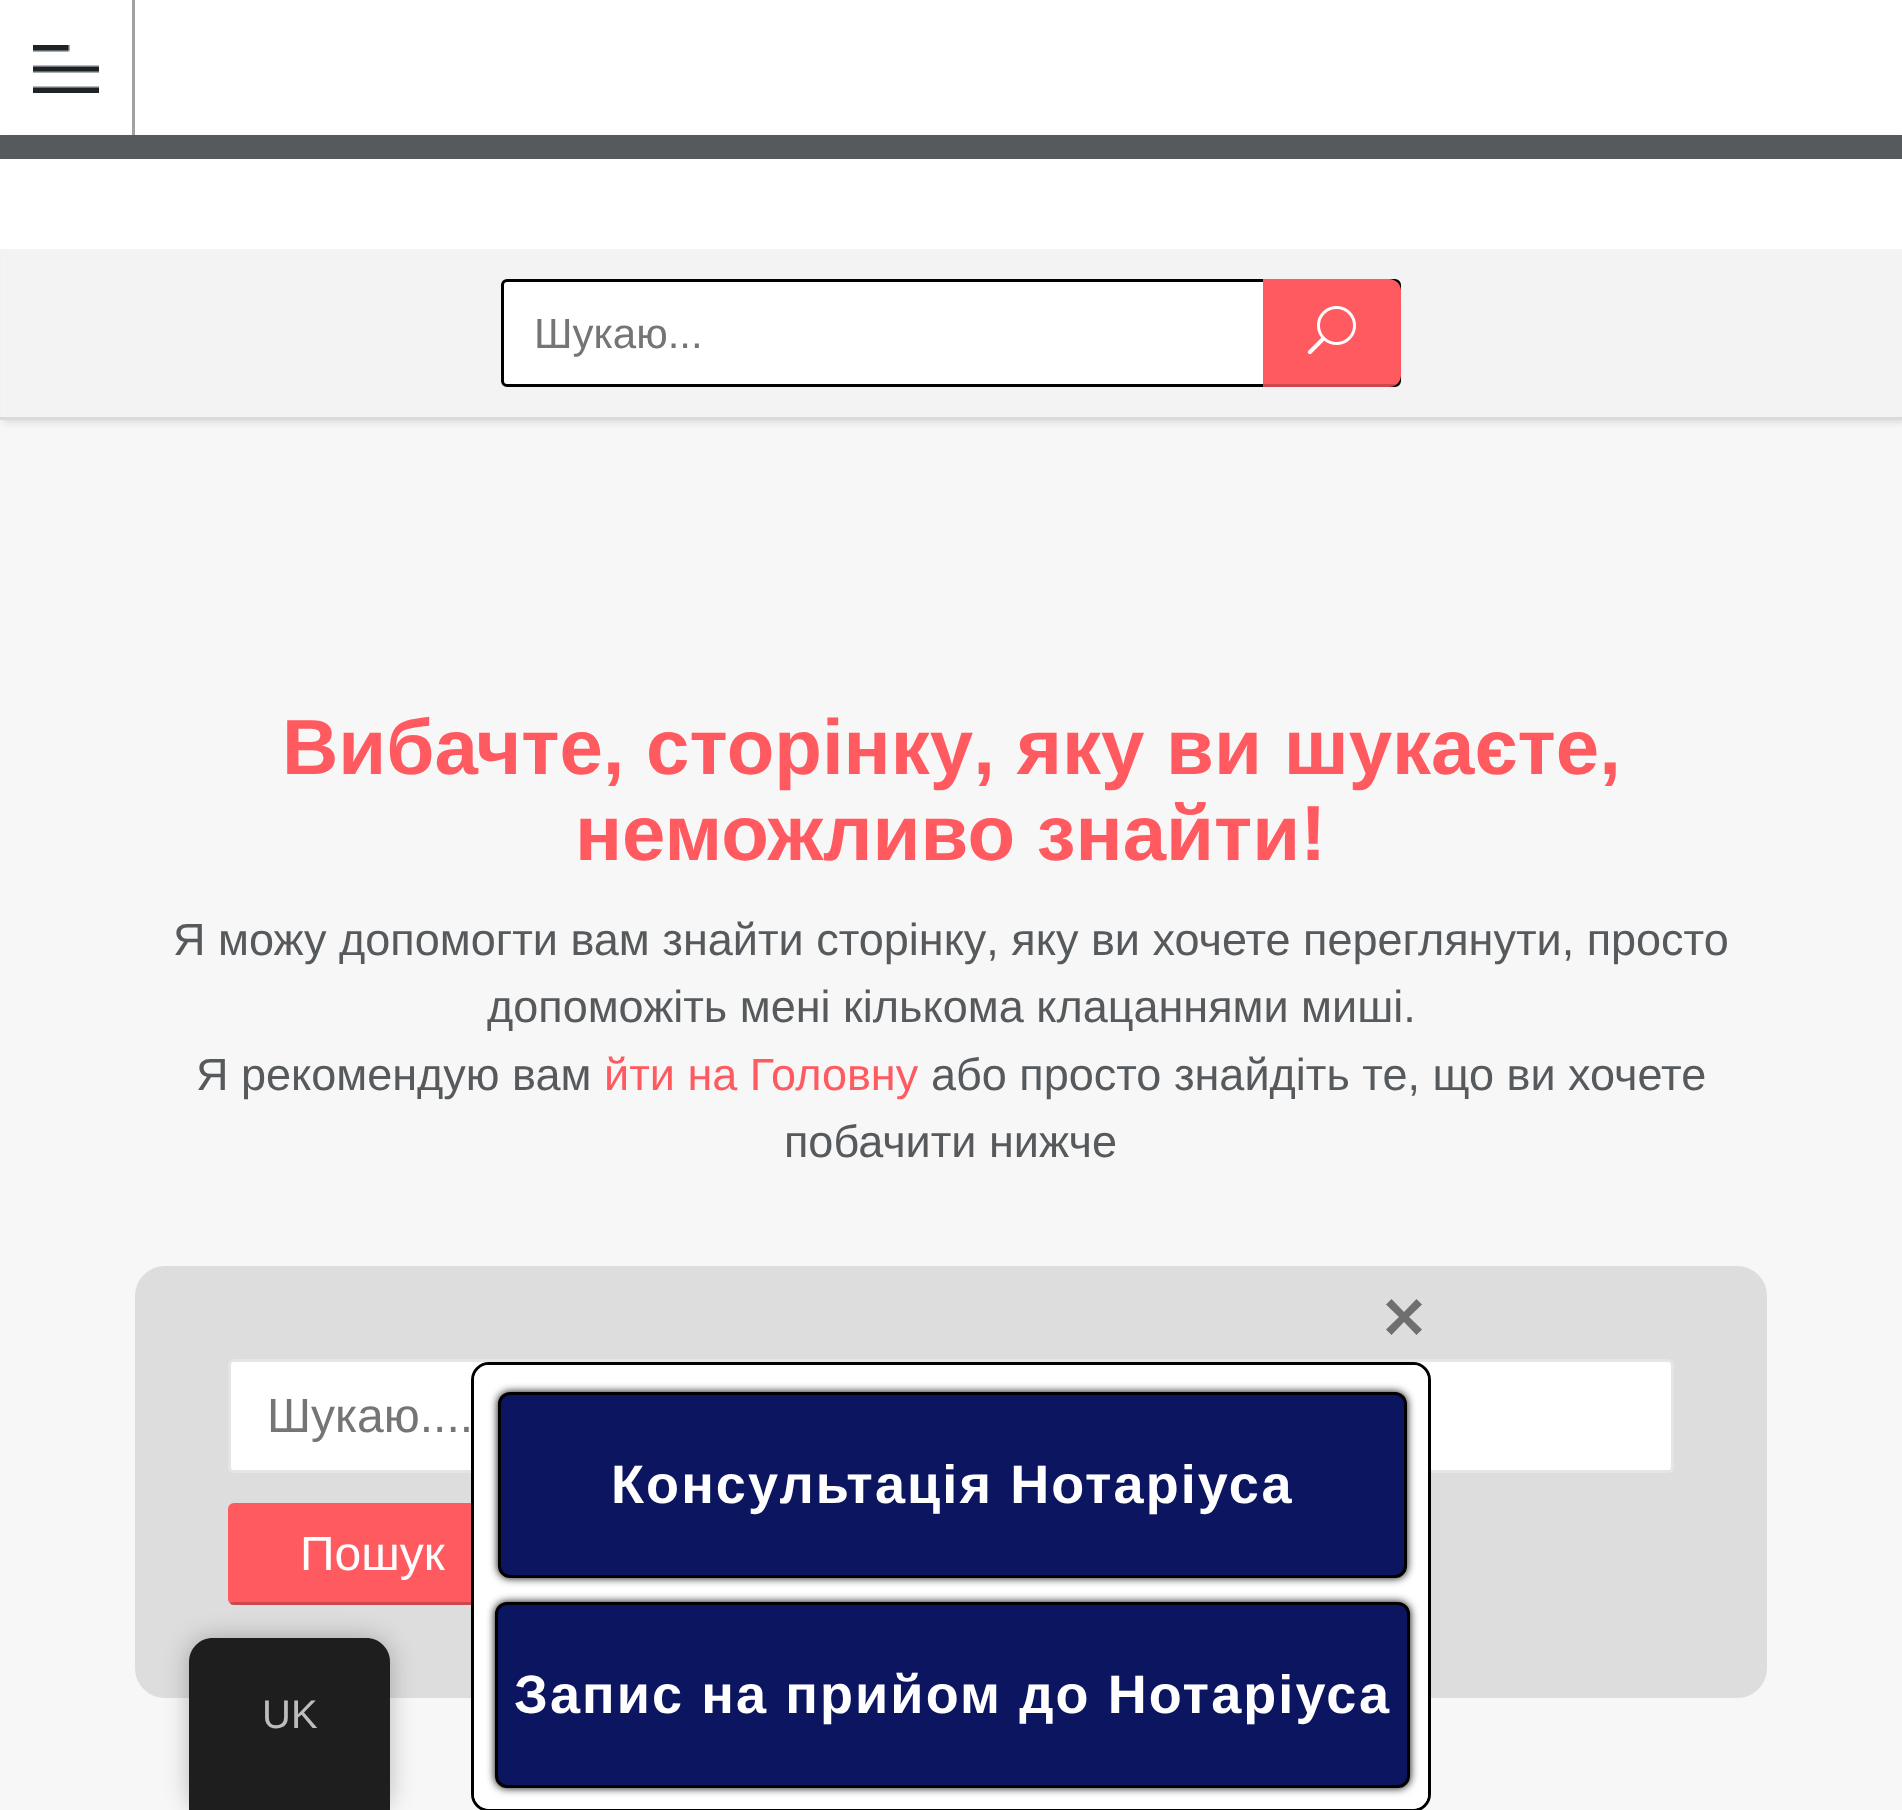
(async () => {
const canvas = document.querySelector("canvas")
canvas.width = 1902
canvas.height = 1810
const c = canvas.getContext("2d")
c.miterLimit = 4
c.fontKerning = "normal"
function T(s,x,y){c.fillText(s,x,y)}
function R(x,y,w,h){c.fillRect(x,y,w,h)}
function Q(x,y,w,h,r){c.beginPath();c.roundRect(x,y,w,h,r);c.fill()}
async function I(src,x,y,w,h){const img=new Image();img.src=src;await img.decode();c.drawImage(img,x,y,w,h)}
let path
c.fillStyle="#f7f7f7"
R(0,0,1902,1810)
c.fillStyle="#fff"
R(0,0,1902,135)
c.fillStyle="#0000001a"
c.filter="blur(3px)"
c.beginPath()
c.rect(3,138,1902,285)
c.fill()
c.filter="none"
c.fillStyle="#a1a1a1"
R(132,0,3,135)
await I("1.png",33,45,66,48)
c.fillStyle="#dadada"
R(0,417,1902,3)
c.fillStyle="#fff"
R(0,159,1902,90)
c.fillStyle="#565a5c"
R(0,135,1902,24)
c.fillStyle="#f3f3f3"
R(1,249,1901,168)
c.fillStyle="#fff"
c.beginPath()
c.roundRect(502.5,280.5,897,105,4.5)
c.fill()
c.strokeStyle="#000"
c.lineWidth=3
c.stroke()
c.font="42px Arimo"
c.fillStyle="#757575"
T("Шукаю...",534,348)
c.fillStyle="#ff5a5f"
c.beginPath()
c.roundRect(1263,279,138,108,[0,12,12,0])
c.fill()
c.fillStyle="#00000033"
R(1263,384,132,3)
await I("2.png",1307,306,49,49)
c.font="bold 78px Arimo"
c.fillStyle="#ff5a5f"
T("Вибачте, сторінку, яку ви шукаєте,",282,774)
T("неможливо знайти!",575,860)
c.font="45px Arimo"
c.fillStyle="#565a5c"
T("Я можу допомогти вам знайти сторінку, яку ви хочете переглянути, просто",173,955)
T("допоможіть мені кількома клацаннями миші.",487,1022)
T("Я рекомендую вам",196,1090)
c.fillStyle="#ff5a5f"
T("йти на Головну",604,1090)
c.fillStyle="#565a5c"
T("або просто знайдіть те, що ви хочете",931,1090)
T("побачити нижче",784,1157)
c.fillStyle="#ddd"
c.beginPath()
c.roundRect(136.5,1267.5,1629,429,28.5)
c.fill()
c.strokeStyle="#ddd"
c.stroke()
c.fillStyle="#fff"
Q(228,1359,1446,114,6)
c.beginPath()
c.roundRect(229.5,1360.5,1443,111,4.5)
c.strokeStyle="#0000001a"
c.stroke()
c.font="48px Arimo"
c.fillStyle="#757575"
T("Шукаю....",267,1432)
c.fillStyle="#ff5a5f"
Q(228,1503,288,102,6)
c.fillStyle="#00000033"
R(231,1602,240,3)
c.fillStyle="#fff"
T("Пошук",300,1570)
c.fillStyle="#00000040"
c.filter="blur(12px)"
c.beginPath()
c.roundRect(189,1638,201,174,24)
c.fill()
c.filter="none"
c.fillStyle="#1e1e1e"
path = new Path2D("M213 1638h153c13.5 0 24 10.5 24 24v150h-201v-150c0-13.5 10.5-24 24-24z")
c.fill(path)
c.font="40px Arimo"
c.fillStyle="#bdbdbd"
T("UK",262,1728)
c.fillStyle="#6f6f6f"
path = new Path2D("M1422 1304.5l-13 12.5l13 12.5l-5.5 5.5l-12.5-13l-12.5 13l-5.5-5.5l13-12.5l-13-12.5l5.5-5.5l12.5 13l12.5-13z")
c.fill(path)
c.beginPath()
c.roundRect(472.5,1363.5,957,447,16.5)
c.strokeStyle="#000"
c.stroke()
c.fillStyle="#fff"
Q(474,1365,954,444,15)
c.fillStyle="#000"
c.filter="blur(4.5px)"
c.beginPath()
c.roundRect(498,1392,909,186,12)
c.fill()
c.filter="none"
c.fillStyle="#0b1560"
c.beginPath()
c.roundRect(499.5,1393.5,906,183,10.5)
c.fill()
c.stroke()
c.letterSpacing="2.1px"
c.font="bold 54px Liberation Sans"
c.fillStyle="#fff"
T("Консультація Нотаріуса",611,1503)
c.fillStyle="#000"
c.filter="blur(4.5px)"
c.beginPath()
c.roundRect(495,1602,915,186,12)
c.fill()
c.filter="none"
c.fillStyle="#0b1560"
c.beginPath()
c.roundRect(496.5,1603.5,912,183,10.5)
c.fill()
c.stroke()
c.fillStyle="#fff"
T("Запис на прийом до Нотаріуса",514,1713)
})()
